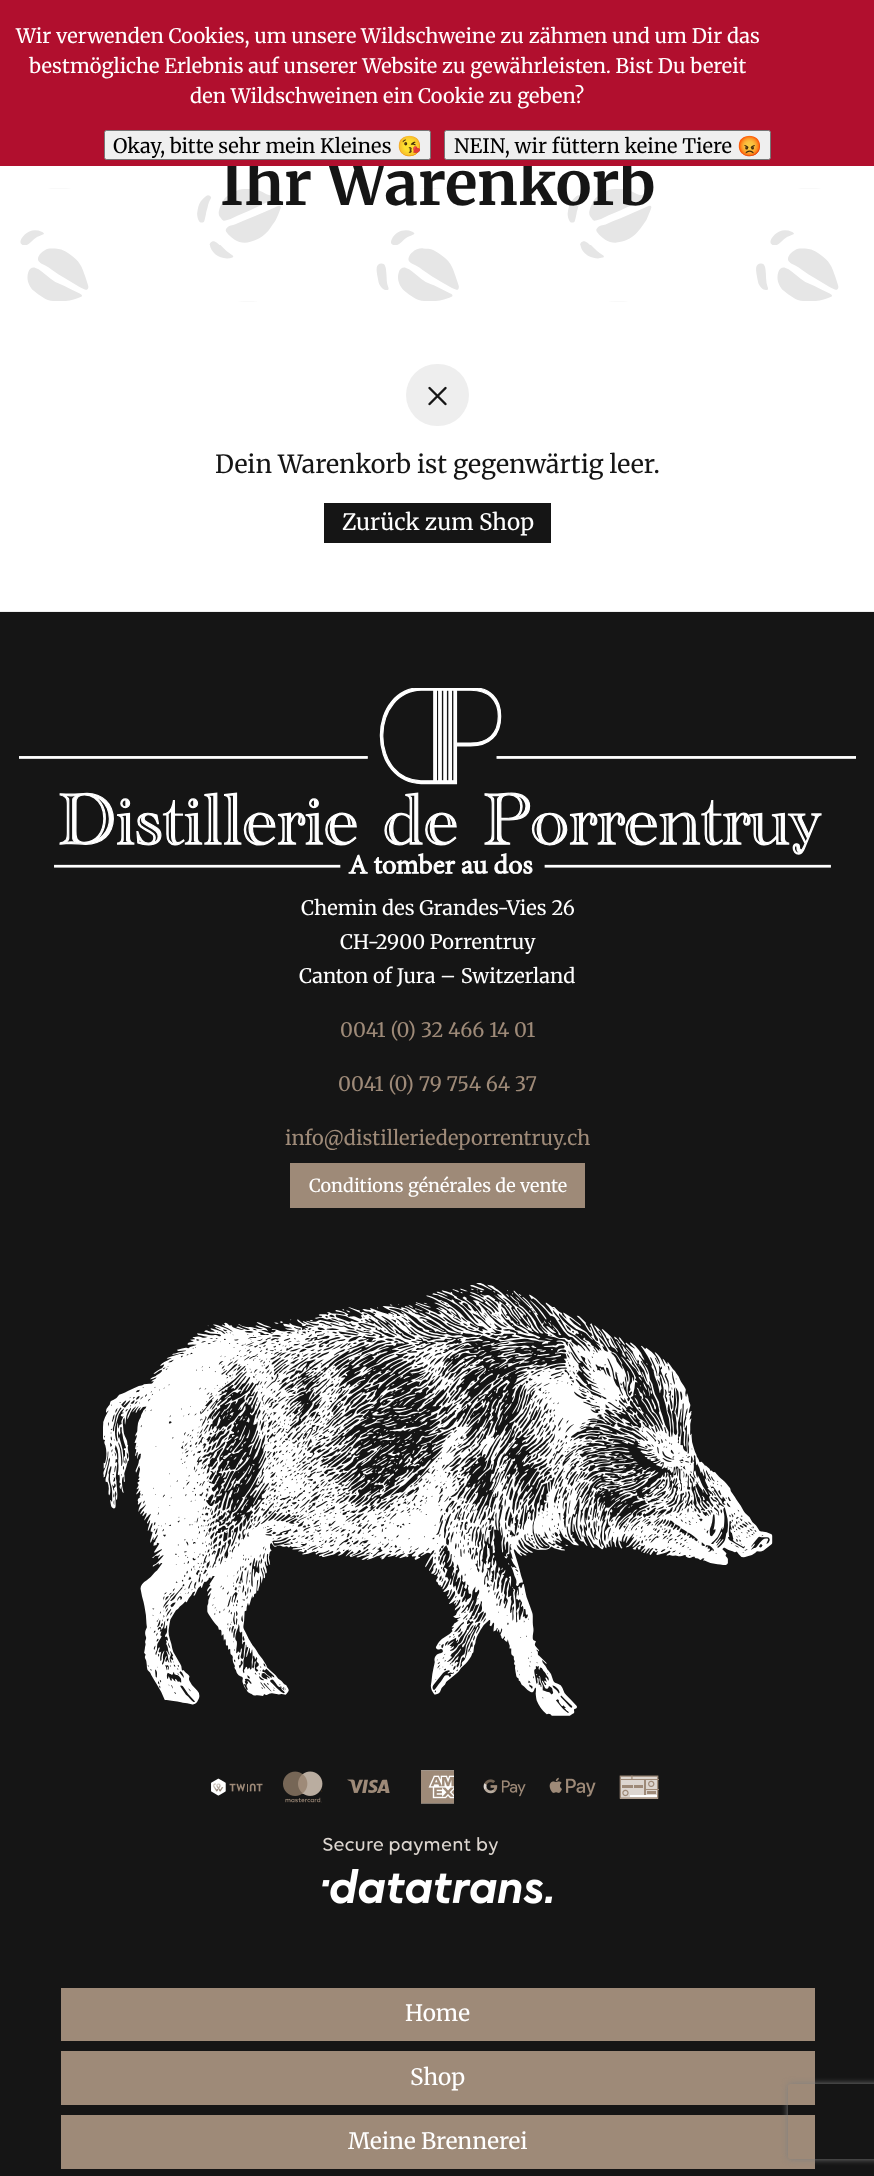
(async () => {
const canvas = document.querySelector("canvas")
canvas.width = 874
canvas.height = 2176
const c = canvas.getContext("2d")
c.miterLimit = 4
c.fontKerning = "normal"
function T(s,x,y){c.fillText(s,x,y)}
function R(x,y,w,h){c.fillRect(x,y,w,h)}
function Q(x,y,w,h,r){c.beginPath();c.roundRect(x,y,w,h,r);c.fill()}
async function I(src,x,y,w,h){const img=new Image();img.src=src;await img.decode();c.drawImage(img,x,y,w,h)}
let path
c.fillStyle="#fff"
R(0,0,874,2176)
await I("1.png",20,188,819,114)
c.font="bold 60px Merriweather"
c.fillStyle="#151515"
T("Ihr Warenkorb",220,205)
c.fillStyle="#b10f2e"
R(0,0,874,166)
c.font="20px Merriweather"
c.fillStyle="#fff"
T("Wir verwenden Cookies, um unsere Wildschweine zu zähmen und um Dir das",16,43)
T("bestmögliche Erlebnis auf unserer Website zu gewährleisten. Bist Du bereit",29,73)
T("den Wildschweinen ein Cookie zu geben?",190,103)
c.fillStyle="#efefef"
c.beginPath()
c.roundRect(104.5,130.5,326,29,2)
c.fill()
c.strokeStyle="#767676"
c.stroke()
c.fillStyle="#000"
T("Okay, bitte sehr mein Kleines",113,153)
c.font="20px Noto Color Emoji"
T("😘",397,153)
c.fillStyle="#efefef"
c.beginPath()
c.roundRect(444.5,130.5,326,29,2)
c.fill()
c.stroke()
c.font="20px Merriweather"
c.fillStyle="#000"
T("NEIN, wir füttern keine Tiere",454,153)
c.font="20px Noto Color Emoji"
T("😡",737,153)
c.fillStyle="#eee"
Q(406,364,63,62,31)
await I("2.png",428,386,19,20)
c.font="25px Merriweather"
c.fillStyle="#151515"
T("Dein Warenkorb ist gegenwärtig leer.",215,473)
R(324,503,227,40)
c.font="22.5px Merriweather"
c.fillStyle="#fff"
T("Zurück zum Shop",342,530)
c.fillStyle="#151515"
R(0,612,874,1564)
c.fillStyle="#eee"
R(0,611,874,1)
await I("3.png",19,688,837,186)
c.font="20px Merriweather"
c.fillStyle="#fff"
T("Chemin des Grandes-Vies 26",301,915)
T("CH-2900 Porrentruy",340,949)
T("Canton of Jura – Switzerland",299,983)
c.fillStyle="#9e8a78"
T("0041 (0) 32 466 14 01",340,1037)
T("0041 (0) 79 754 64 37",338,1091)
T("info@distilleriedeporrentruy.ch",285,1145)
R(290,1163,295,45)
c.font="18px Merriweather"
c.fillStyle="#fff"
T("Conditions générales de vente",309,1192)
await I("4.png",103,1283,670,433)
await I("5.png",211,1778,52,18)
await I("6.png",283,1771,40,32)
await I("7.png",347,1779,43,14)
await I("8.png",421,1770,33,34)
await I("9.png",483,1779,43,18)
await I("10.png",549,1777,47,20)
await I("11.png",619,1775,40,24)
await I("12.png",322,1837,231,67)
c.fillStyle="#9e8a78"
R(61,1988,754,53)
c.font="22.5px Merriweather"
c.fillStyle="#fff"
T("Home",405,2021)
c.fillStyle="#9e8a78"
R(61,2051,754,54)
c.fillStyle="#fff"
T("Shop",410,2085)
c.fillStyle="#9e8a78"
R(61,2115,754,54)
c.fillStyle="#fff"
T("Meine Brennerei",348,2149)
c.save()
path = new Path2D("M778 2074h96v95h-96zm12.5 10h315c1.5 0 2.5 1 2.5 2.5v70c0 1.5-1 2.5-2.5 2.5h-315c-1.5 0-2.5-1-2.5-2.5v-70c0-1.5 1-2.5 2.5-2.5z")
c.clip(path,"evenodd")
c.fillStyle="#808080"
c.filter="blur(3px)"
c.beginPath()
c.roundRect(788,2084,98,75,2.5)
c.fill()
c.filter="none"
c.restore()
})()
